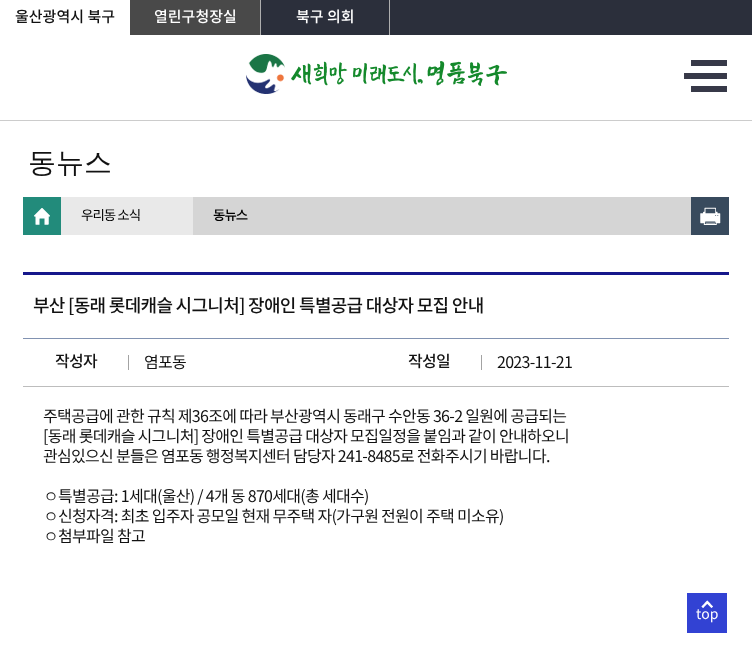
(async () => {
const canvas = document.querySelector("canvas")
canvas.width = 752
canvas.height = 658
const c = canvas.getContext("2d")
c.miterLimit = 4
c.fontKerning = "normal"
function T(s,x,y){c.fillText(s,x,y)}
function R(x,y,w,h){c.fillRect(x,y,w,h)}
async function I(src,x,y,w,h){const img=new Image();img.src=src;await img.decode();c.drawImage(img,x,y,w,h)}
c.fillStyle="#fff"
R(0,0,752,658)
c.fillStyle="#2b2f3b"
R(261,0,491,35)
c.font="500 15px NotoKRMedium"
c.fillStyle="#121212"
T("울산광역시 북구",15,22)
c.fillStyle="#494949"
R(130,0,130,35)
c.fillStyle="#fff"
T("열린구청장실",154,22)
c.fillStyle="#aeaeae"
R(389,0,1,35)
R(260,0,1,35)
c.fillStyle="#fff"
T("북구 의회",296,22)
await I("1.png",687,593,40,40)
c.font="14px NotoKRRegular"
T("top",696,619)
c.fillStyle="#ccc"
R(0,120,752,1)
await I("2.png",246,54,261,40)
await I("3.png",684,60,43,32)
c.font="500 28px WenQuanYi Zen Hei"
c.fillStyle="#121212"
T("동뉴스",28,172)
c.fillStyle="#d5d5d5"
R(193,197,498,38)
c.fillStyle="#228b7b"
R(23,197,38,38)
await I("4.png",34,208,16,17)
c.fillStyle="#e9e9e9"
R(61,197,132,38)
c.letterSpacing="-1px"
c.font="13.5px NotoKRRegular"
c.fillStyle="#000"
T("우리동 소식",81,220)
c.font="500 13.5px NotoKRMedium"
T("동뉴스",213,220)
c.fillStyle="#384a5d"
R(691,197,38,38)
await I("5.png",700,207,21,18)
c.fillStyle="#16178b"
R(23,272,706,3)
c.fillStyle="#8192b1"
R(23,338,706,1)
c.letterSpacing="-0.7px"
c.font="500 18px NotoKRMedium"
c.fillStyle="#121212"
T("부산 [동래 롯데캐슬 시그니처] 장애인 특별공급 대상자 모집 안내",33,312)
c.fillStyle="#a3a3a3"
R(128,355,1,15)
c.font="500 16px NotoKRMedium"
c.fillStyle="#121212"
T("작성자",55,367)
c.font="16px NotoKRRegular"
T("염포동",144,368)
c.fillStyle="#a3a3a3"
R(481,355,1,15)
c.font="500 16px NotoKRMedium"
c.fillStyle="#121212"
T("작성일",408,367)
c.fillStyle="#bdbdbd"
R(23,386,706,1)
c.font="16px NotoKRRegular"
c.fillStyle="#121212"
T("2023-11-21",497,368)
T("주택공급에 관한 규칙 제36조에 따라 부산광역시 동래구 수안동 36-2 일원에 공급되는",43,422)
T("[동래 롯데캐슬 시그니처] 장애인 특별공급 대상자 모집일정을 붙임과 같이 안내하오니",43,442)
T("관심있으신 분들은 염포동 행정복지센터 담당자 241-8485로 전화주시기 바랍니다.",43,462)
c.font="500 16px WenQuanYi Zen Hei"
T("ㅇ",43,502)
c.font="16px NotoKRRegular"
T("특별공급: 1세대(울산) / 4개 동 870세대(총 세대수)",58,502)
c.font="500 16px WenQuanYi Zen Hei"
T("ㅇ",43,522)
c.font="16px NotoKRRegular"
T("신청자격: 최초 입주자 공모일 현재 무주택 자(가구원 전원이 주택 미소유)",58,522)
c.font="500 16px WenQuanYi Zen Hei"
T("ㅇ",43,542)
c.font="16px NotoKRRegular"
T("첨부파일 참고",58,542)
})()
